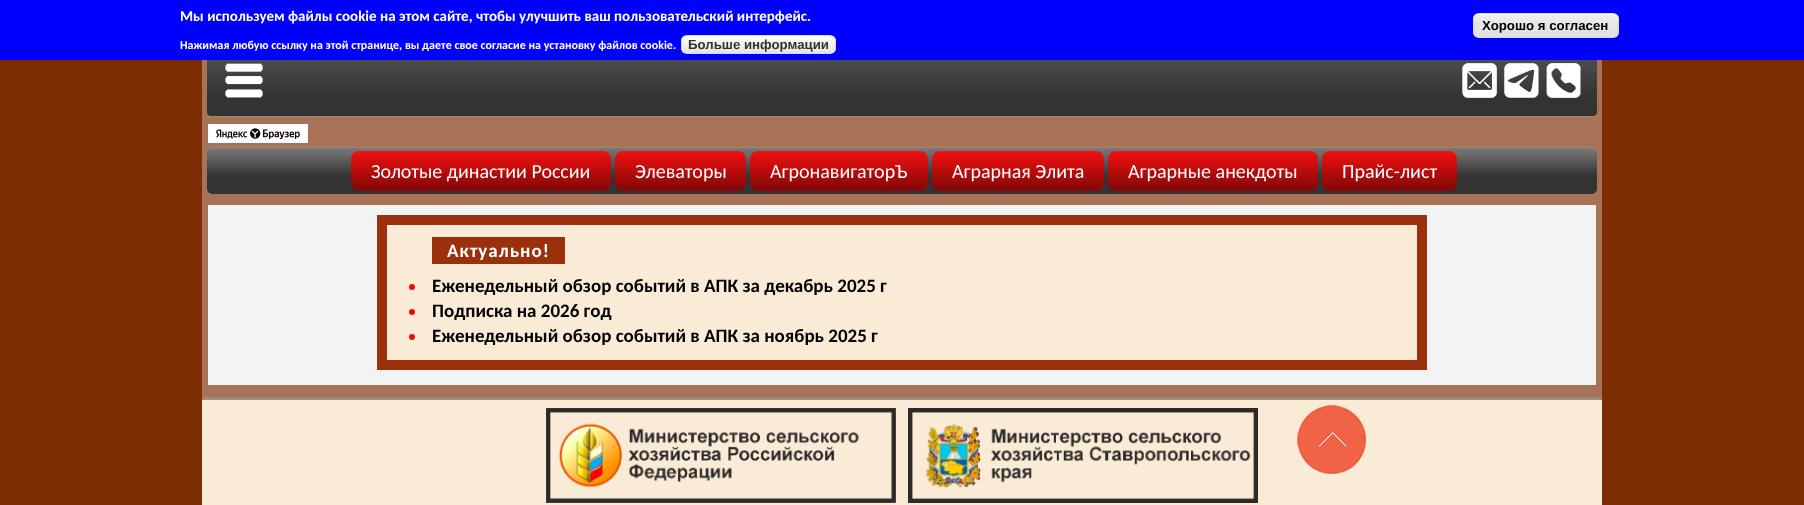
(async () => {
const canvas = document.querySelector("canvas")
canvas.width = 1804
canvas.height = 505
const c = canvas.getContext("2d")
c.miterLimit = 4
c.fontKerning = "normal"
function T(s,x,y){c.fillText(s,x,y)}
function R(x,y,w,h){c.fillRect(x,y,w,h)}
function Q(x,y,w,h,r){c.beginPath();c.roundRect(x,y,w,h,r);c.fill()}
async function I(src,x,y,w,h){const img=new Image();img.src=src;await img.decode();c.drawImage(img,x,y,w,h)}
let gradient, path
c.fillStyle="#7d2d03"
R(0,0,1804,505)
c.fillStyle="#a87256"
R(202,60,1400,340)
c.save()
c.beginPath()
c.rect(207,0,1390,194)
c.clip()
c.fillStyle="#999"
c.filter="blur(1.5px)"
c.beginPath()
c.roundRect(207,47,1390,69,4)
c.fill()
c.filter="none"
c.restore()
gradient = c.createLinearGradient(902,47,902,116)
gradient.addColorStop(0,"#555")
gradient.addColorStop(.72,"#333")
c.fillStyle = gradient
c.beginPath()
c.roundRect(207,47,1390,69,[0,0,4,4])
c.fill()
c.fillStyle="#00f"
R(0,0,1804,60)
c.font="bold 15px Carlito"
c.fillStyle="#fff"
T("Мы используем файлы cookie на этом сайте, чтобы улучшить ваш пользовательский интерфейс.",180,21)
c.font="bold 12px Carlito"
T("Нажимая любую ссылку на этой странице, вы даете свое согласие на установку файлов cookie.",180,49)
c.save()
c.beginPath()
c.roundRect(681,35,155,19,6)
c.clip()
gradient = c.createLinearGradient(759,36,759,53)
gradient.addColorStop(0,"#fff")
gradient.addColorStop(1,"#e3e3e3")
c.fillStyle = gradient
R(681,36,155,17)
c.restore()
c.beginPath()
c.roundRect(681.5,35.5,154,18,5.5)
c.strokeStyle="#dbdbdb"
c.stroke()
c.font="bold 13.25px Liberation Sans"
c.fillStyle="#333"
T("Больше информации",688,49)
c.save()
c.beginPath()
c.roundRect(1473,13,146,25,6)
c.clip()
gradient = c.createLinearGradient(1546,14,1546,37)
gradient.addColorStop(.05,"#ededed")
gradient.addColorStop(1,"#dfdfdf")
c.fillStyle = gradient
R(1473,14,146,23)
c.restore()
c.fillStyle="#fff"
path = new Path2D("M1479 15h134c3 0 5 2 5 5v-1c0-3-2-5-5-5h-134c-3 0-5 2-5 5v1c0-3 2-5 5-5z")
c.fill(path)
c.beginPath()
c.roundRect(1473.5,13.5,145,24,5.5)
c.strokeStyle="#dcdcdc"
c.stroke()
c.fillStyle="#000"
T("Хорошо я согласен",1482,30)
await I("1.png",225,63,38,35)
await I("2.png",1462,63,35,35)
await I("3.png",1504,63,35,35)
await I("4.png",1546,63,35,35)
await I("5.png",208,124,100,19)
c.save()
c.beginPath()
c.rect(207,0,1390,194)
c.clip()
c.fillStyle="#999"
c.filter="blur(1.5px)"
c.beginPath()
c.roundRect(207,148,1390,46,5)
c.fill()
c.filter="none"
c.restore()
gradient = c.createLinearGradient(902,148,902,194)
gradient.addColorStop(0,"#7a7a7a")
gradient.addColorStop(.61,"#333")
c.fillStyle = gradient
Q(207,148,1390,46,5)
gradient = c.createLinearGradient(481,151,481,201)
gradient.addColorStop(0,"#f31010")
gradient.addColorStop(1,"#630505")
c.fillStyle = gradient
Q(351,151,260,40,8)
c.font="20px Carlito"
c.fillStyle="#fff"
T("Золотые династии России",371,178)
gradient = c.createLinearGradient(681,151,681,201)
gradient.addColorStop(0,"#f31010")
gradient.addColorStop(1,"#630505")
c.fillStyle = gradient
Q(615,151,131,40,8)
c.fillStyle="#fff"
T("Элеваторы",635,178)
gradient = c.createLinearGradient(839,151,839,201)
gradient.addColorStop(0,"#f31010")
gradient.addColorStop(1,"#630505")
c.fillStyle = gradient
Q(750,151,178,40,8)
c.fillStyle="#fff"
T("АгронавигаторЪ",770,178)
gradient = c.createLinearGradient(1018,151,1018,201)
gradient.addColorStop(0,"#f31010")
gradient.addColorStop(1,"#630505")
c.fillStyle = gradient
Q(932,151,172,40,8)
c.fillStyle="#fff"
T("Аграрная Элита",952,178)
gradient = c.createLinearGradient(1213,151,1213,201)
gradient.addColorStop(0,"#f31010")
gradient.addColorStop(1,"#630505")
c.fillStyle = gradient
Q(1108,151,210,40,8)
c.fillStyle="#fff"
T("Аграрные анекдоты",1128,178)
gradient = c.createLinearGradient(1390,151,1390,201)
gradient.addColorStop(0,"#f31010")
gradient.addColorStop(1,"#630505")
c.fillStyle = gradient
Q(1322,151,135,40,8)
c.fillStyle="#fff"
T("Прайс-лист",1342,178)
c.fillStyle="#f3f3f3"
R(208,205,1388,180)
c.fillStyle="#faebd7"
c.beginPath()
c.rect(382,220,1040,145)
c.fill()
c.strokeStyle="#9b300d"
c.lineWidth=10
c.stroke()
c.fillStyle="#9b300d"
R(432,237,133,27)
c.letterSpacing="1px"
c.font="bold 19px Carlito"
c.fillStyle="#fff"
T("Актуально!",447,257)
c.fillStyle="#ee0a0a"
c.beginPath()
c.arc(412,287,3,0,7)
c.fill()
c.letterSpacing="0px"
c.fillStyle="#000"
T("Еженедельный обзор событий в АПК за декабрь 2025 г",432,292)
c.fillStyle="#ee0a0a"
c.beginPath()
c.arc(412,312,3,0,7)
c.fill()
c.fillStyle="#000"
T("Подписка на 2026 год",432,317)
c.fillStyle="#ee0a0a"
c.beginPath()
c.arc(412,337,3,0,7)
c.fill()
c.fillStyle="#000"
T("Еженедельный обзор событий в АПК за ноябрь 2025 г",432,342)
c.save()
c.beginPath()
c.rect(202,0,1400,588)
c.clip()
c.fillStyle="#999"
c.filter="blur(1.5px)"
c.beginPath()
c.rect(202,398,1400,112)
c.fill()
c.filter="none"
c.restore()
c.fillStyle="#faebd7"
R(202,400,1400,105)
await I("6.png",546,408,350,95)
await I("7.png",908,408,350,95)
await I("8.png",1297,405,69,69)
})()
